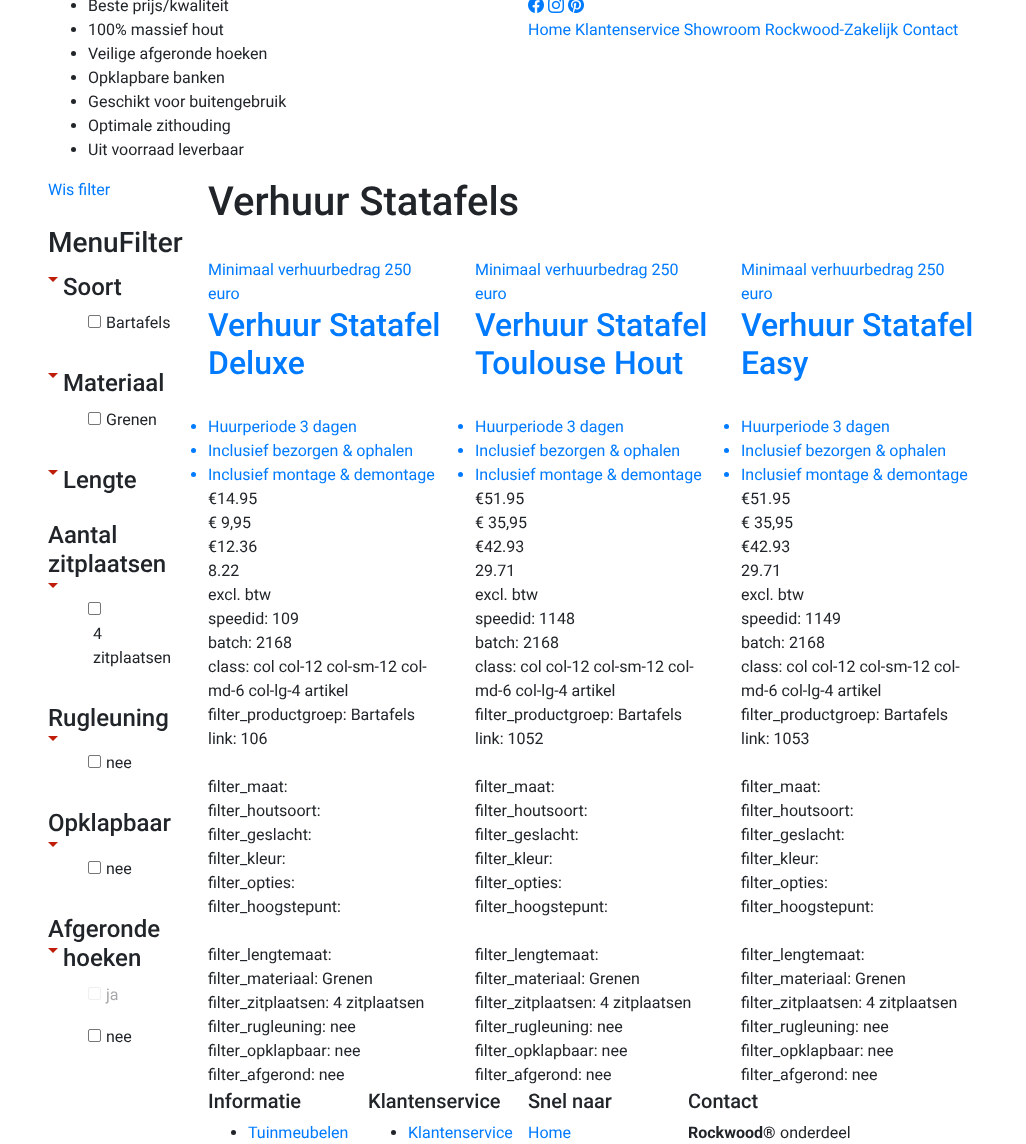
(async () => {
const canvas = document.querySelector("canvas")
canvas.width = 1026
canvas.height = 1144
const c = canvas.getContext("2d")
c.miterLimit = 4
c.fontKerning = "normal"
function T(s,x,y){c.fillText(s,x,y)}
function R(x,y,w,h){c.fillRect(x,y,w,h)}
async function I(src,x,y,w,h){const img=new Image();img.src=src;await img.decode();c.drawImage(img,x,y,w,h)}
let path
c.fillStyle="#fff"
R(0,0,1026,1144)
c.fillStyle="#212529"
c.beginPath()
c.arc(73.5,5.5,2.5,0,7)
c.fill()
c.font="16px Roboto"
T("Beste prijs/kwaliteit",88,11)
c.beginPath()
c.arc(73.5,29.5,2.5,0,7)
c.fill()
T("100% massief hout",88,35)
c.beginPath()
c.arc(73.5,53.5,2.5,0,7)
c.fill()
T("Veilige afgeronde hoeken",88,59)
c.beginPath()
c.arc(73.5,77.5,2.5,0,7)
c.fill()
T("Opklapbare banken",88,83)
c.beginPath()
c.arc(73.5,101.5,2.5,0,7)
c.fill()
T("Geschikt voor buitengebruik",88,107)
c.beginPath()
c.arc(73.5,125.5,2.5,0,7)
c.fill()
T("Optimale zithouding",88,131)
c.beginPath()
c.arc(73.5,149.5,2.5,0,7)
c.fill()
T("Uit voorraad leverbaar",88,155)
await I("1.png",528,0,16,13)
await I("2.png",548,0,16,13)
await I("3.png",568,0,16,13)
c.fillStyle="#007bff"
T("Home Klantenservice Showroom Rockwood-Zakelijk Contact",528,35)
T("Wis filter",48,195)
c.font="500 28px Roboto"
c.fillStyle="#212529"
T("MenuFilter",48,252)
c.fillStyle="#bf1c09"
path = new Path2D("M48 277h10l-5 5z")
c.fill(path)
c.font="500 24px Roboto"
c.fillStyle="#212529"
T("Soort",63,295)
c.beginPath()
c.roundRect(88.5,315.5,12,12,1.5)
c.strokeStyle="#767676"
c.stroke()
c.font="16px Roboto"
T("Bartafels",106,328)
c.fillStyle="#bf1c09"
path = new Path2D("M48 373h10l-5 5z")
c.fill(path)
c.font="500 24px Roboto"
c.fillStyle="#212529"
T("Materiaal",63,391)
c.beginPath()
c.roundRect(88.5,412.5,12,12,1.5)
c.stroke()
c.font="16px Roboto"
T("Grenen",106,425)
c.fillStyle="#bf1c09"
path = new Path2D("M48 470h10l-5 5z")
c.fill(path)
c.font="500 24px Roboto"
c.fillStyle="#212529"
T("Lengte",63,488)
T("Aantal",48,543)
T("zitplaatsen",48,572)
c.fillStyle="#bf1c09"
path = new Path2D("M48 583h10l-5 5z")
c.fill(path)
c.beginPath()
c.roundRect(88.5,602.5,12,12,1.5)
c.stroke()
c.font="16px Roboto"
c.fillStyle="#212529"
T("4",93,639)
T("zitplaatsen",93,663)
c.font="500 24px Roboto"
T("Rugleuning",48,726)
c.fillStyle="#bf1c09"
path = new Path2D("M48 736h10l-5 5z")
c.fill(path)
c.beginPath()
c.roundRect(88.5,755.5,12,12,1.5)
c.stroke()
c.font="16px Roboto"
c.fillStyle="#212529"
T("nee",106,768)
c.font="500 24px Roboto"
T("Opklapbaar",48,831)
c.fillStyle="#bf1c09"
path = new Path2D("M48 842h10l-5 5z")
c.fill(path)
c.beginPath()
c.roundRect(88.5,861.5,12,12,1.5)
c.stroke()
c.font="16px Roboto"
c.fillStyle="#212529"
T("nee",106,874)
c.font="500 24px Roboto"
T("Afgeronde",48,937)
c.fillStyle="#bf1c09"
path = new Path2D("M48 948h10l-5 5z")
c.fill(path)
c.fillStyle="#212529"
T("hoeken",63,966)
c.beginPath()
c.roundRect(88.5,987.5,12,12,1.5)
c.strokeStyle="#efefef"
c.stroke()
c.font="16px Roboto"
c.fillStyle="#a6a8a9"
T("ja",106,1000)
c.beginPath()
c.roundRect(88.5,1029.5,12,12,1.5)
c.strokeStyle="#767676"
c.stroke()
c.fillStyle="#212529"
T("nee",106,1042)
c.font="500 40px Roboto"
T("Verhuur Statafels",208,215)
c.font="16px Roboto"
c.fillStyle="#007bff"
T("Minimaal verhuurbedrag 250",208,275)
T("euro",208,299)
c.font="500 32px Roboto"
T("Verhuur Statafel",208,336)
T("Deluxe",208,374)
c.beginPath()
c.arc(193.5,426.5,2.5,0,7)
c.fill()
c.font="16px Roboto"
T("Huurperiode 3 dagen",208,432)
c.beginPath()
c.arc(193.5,450.5,2.5,0,7)
c.fill()
T("Inclusief bezorgen & ophalen",208,456)
c.beginPath()
c.arc(193.5,474.5,2.5,0,7)
c.fill()
T("Inclusief montage & demontage",208,480)
c.fillStyle="#212529"
T("€14.95",208,504)
T("€ 9,95",208,528)
T("€12.36",208,552)
T("8.22",208,576)
T("excl. btw",208,600)
T("speedid: 109",208,624)
T("batch: 2168",208,648)
T("class: col col-12 col-sm-12 col-",208,672)
T("md-6 col-lg-4 artikel",208,696)
T("filter_productgroep: Bartafels",208,720)
T("link: 106",208,744)
T("filter_maat:",208,792)
T("filter_houtsoort:",208,816)
T("filter_geslacht:",208,840)
T("filter_kleur:",208,864)
T("filter_opties:",208,888)
T("filter_hoogstepunt:",208,912)
T("filter_lengtemaat:",208,960)
T("filter_materiaal: Grenen",208,984)
T("filter_zitplaatsen: 4 zitplaatsen",208,1008)
T("filter_rugleuning: nee",208,1032)
T("filter_opklapbaar: nee",208,1056)
T("filter_afgerond: nee",208,1080)
c.fillStyle="#007bff"
T("Minimaal verhuurbedrag 250",475,275)
T("euro",475,299)
c.font="500 32px Roboto"
T("Verhuur Statafel",475,336)
T("Toulouse Hout",475,374)
c.beginPath()
c.arc(460.5,426.5,2.5,0,7)
c.fill()
c.font="16px Roboto"
T("Huurperiode 3 dagen",475,432)
c.beginPath()
c.arc(460.5,450.5,2.5,0,7)
c.fill()
T("Inclusief bezorgen & ophalen",475,456)
c.beginPath()
c.arc(460.5,474.5,2.5,0,7)
c.fill()
T("Inclusief montage & demontage",475,480)
c.fillStyle="#212529"
T("€51.95",475,504)
T("€ 35,95",475,528)
T("€42.93",475,552)
T("29.71",475,576)
T("excl. btw",475,600)
T("speedid: 1148",475,624)
T("batch: 2168",475,648)
T("class: col col-12 col-sm-12 col-",475,672)
T("md-6 col-lg-4 artikel",475,696)
T("filter_productgroep: Bartafels",475,720)
T("link: 1052",475,744)
T("filter_maat:",475,792)
T("filter_houtsoort:",475,816)
T("filter_geslacht:",475,840)
T("filter_kleur:",475,864)
T("filter_opties:",475,888)
T("filter_hoogstepunt:",475,912)
T("filter_lengtemaat:",475,960)
T("filter_materiaal: Grenen",475,984)
T("filter_zitplaatsen: 4 zitplaatsen",475,1008)
T("filter_rugleuning: nee",475,1032)
T("filter_opklapbaar: nee",475,1056)
T("filter_afgerond: nee",475,1080)
c.fillStyle="#007bff"
T("Minimaal verhuurbedrag 250",741,275)
T("euro",741,299)
c.font="500 32px Roboto"
T("Verhuur Statafel",741,336)
T("Easy",741,374)
c.beginPath()
c.arc(726.5,426.5,2.5,0,7)
c.fill()
c.font="16px Roboto"
T("Huurperiode 3 dagen",741,432)
c.beginPath()
c.arc(726.5,450.5,2.5,0,7)
c.fill()
T("Inclusief bezorgen & ophalen",741,456)
c.beginPath()
c.arc(726.5,474.5,2.5,0,7)
c.fill()
T("Inclusief montage & demontage",741,480)
c.fillStyle="#212529"
T("€51.95",741,504)
T("€ 35,95",741,528)
T("€42.93",741,552)
T("29.71",741,576)
T("excl. btw",741,600)
T("speedid: 1149",741,624)
T("batch: 2168",741,648)
T("class: col col-12 col-sm-12 col-",741,672)
T("md-6 col-lg-4 artikel",741,696)
T("filter_productgroep: Bartafels",741,720)
T("link: 1053",741,744)
T("filter_maat:",741,792)
T("filter_houtsoort:",741,816)
T("filter_geslacht:",741,840)
T("filter_kleur:",741,864)
T("filter_opties:",741,888)
T("filter_hoogstepunt:",741,912)
T("filter_lengtemaat:",741,960)
T("filter_materiaal: Grenen",741,984)
T("filter_zitplaatsen: 4 zitplaatsen",741,1008)
T("filter_rugleuning: nee",741,1032)
T("filter_opklapbaar: nee",741,1056)
T("filter_afgerond: nee",741,1080)
c.font="500 20px Roboto"
T("Informatie",208,1108)
c.beginPath()
c.arc(233.5,1132.5,2.5,0,7)
c.fill()
c.font="16px Roboto"
c.fillStyle="#007bff"
T("Tuinmeubelen",248,1138)
c.font="500 20px Roboto"
c.fillStyle="#212529"
T("Klantenservice",368,1108)
c.beginPath()
c.arc(393.5,1132.5,2.5,0,7)
c.fill()
c.font="16px Roboto"
c.fillStyle="#007bff"
T("Klantenservice",408,1138)
c.font="500 20px Roboto"
c.fillStyle="#212529"
T("Snel naar",528,1108)
c.font="16px Roboto"
c.fillStyle="#007bff"
T("Home",528,1138)
c.font="500 20px Roboto"
c.fillStyle="#212529"
T("Contact",688,1108)
c.font="bold 16px Roboto"
T("Rockwood®",688,1138)
c.font="16px Roboto"
T("onderdeel",780,1138)
})()
